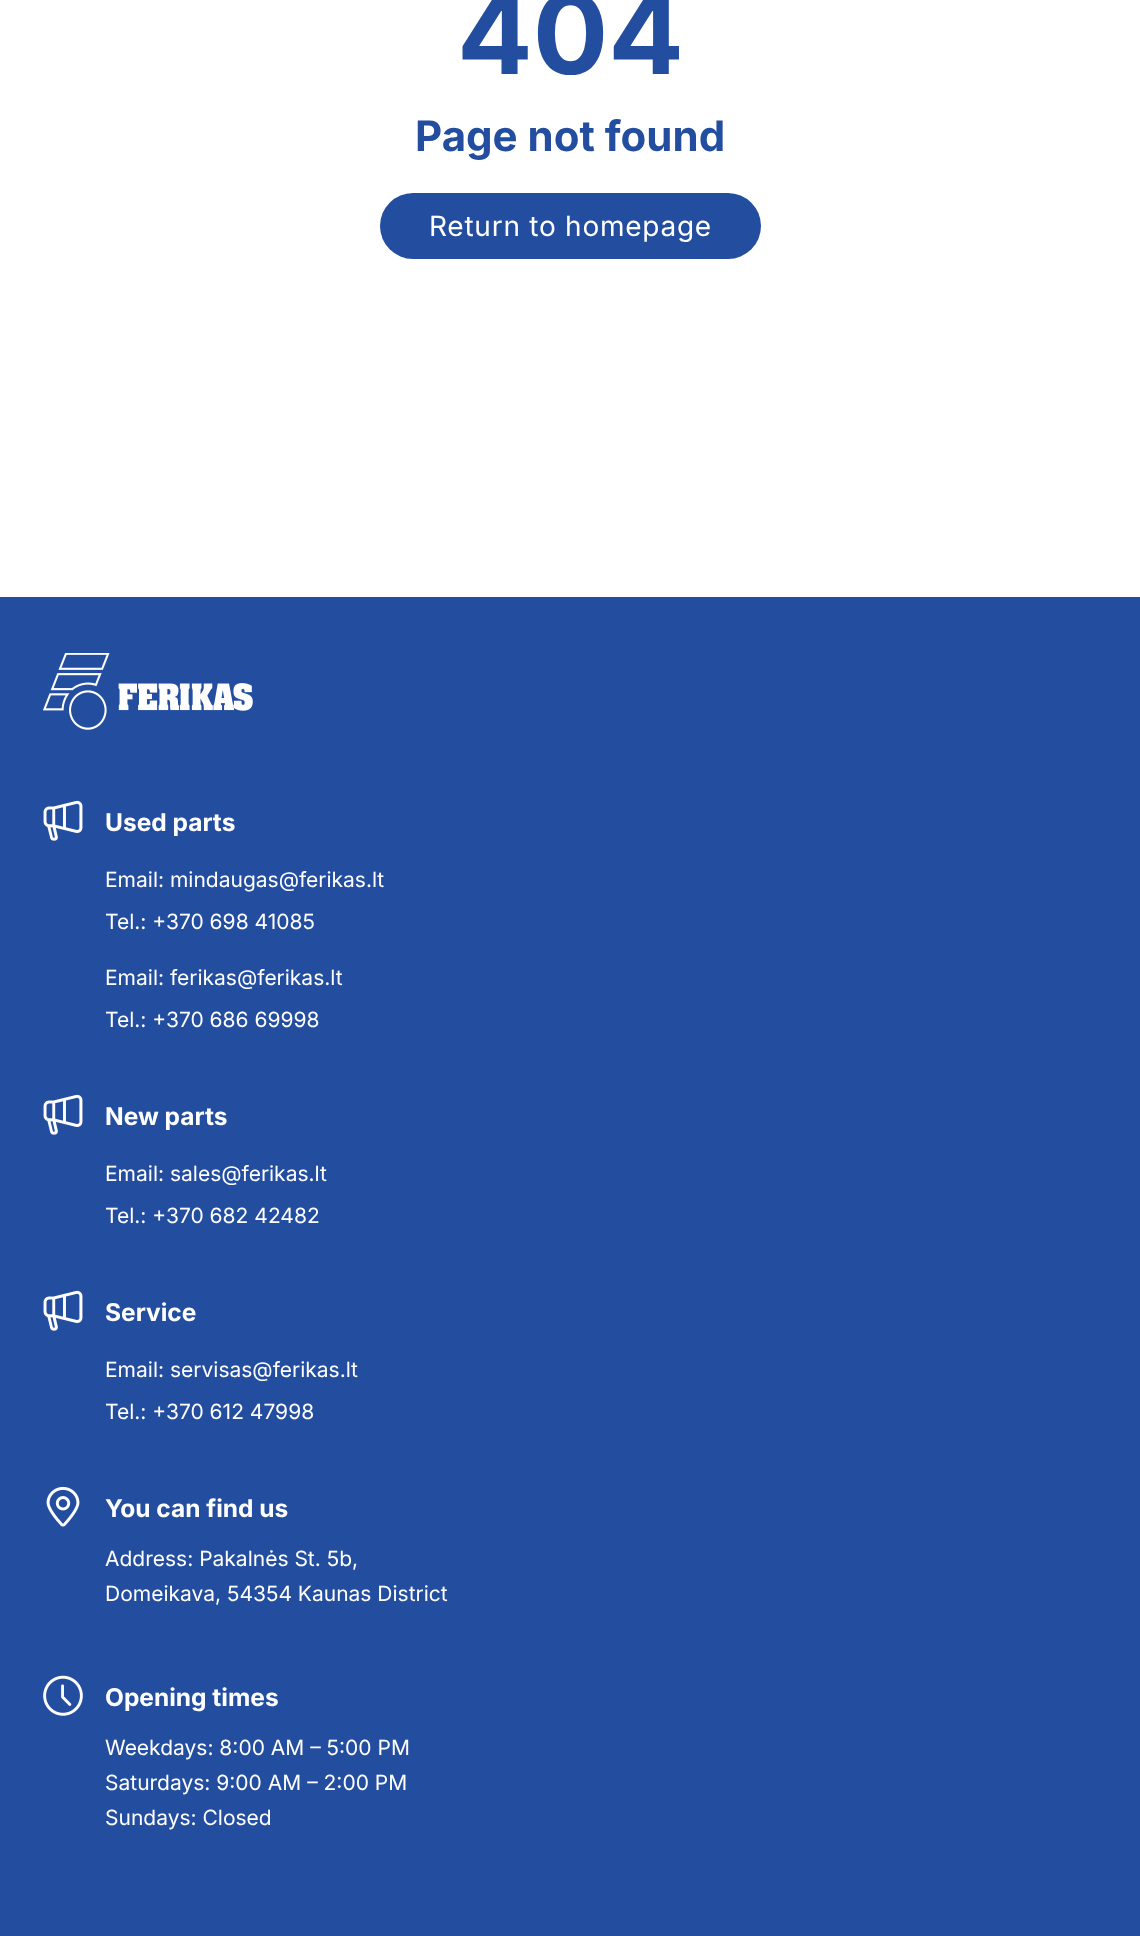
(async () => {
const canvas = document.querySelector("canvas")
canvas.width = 1140
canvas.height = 1936
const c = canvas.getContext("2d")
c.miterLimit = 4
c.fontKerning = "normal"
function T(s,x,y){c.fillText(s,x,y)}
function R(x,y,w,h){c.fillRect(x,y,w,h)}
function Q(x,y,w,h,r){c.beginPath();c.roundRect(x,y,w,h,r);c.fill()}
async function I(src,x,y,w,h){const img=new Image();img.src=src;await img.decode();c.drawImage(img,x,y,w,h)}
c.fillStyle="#fff"
R(0,0,1140,1936)
c.font="bold 112px Inter"
c.fillStyle="#234d9f"
T("404",457,74)
c.font="bold 42px Inter"
T("Page not found",415,151)
Q(380,193,381,66,33)
c.letterSpacing="0.75px"
c.font="28px Inter"
c.fillStyle="#fff"
T("Return to homepage",429,236)
c.fillStyle="#234d9f"
R(0,597,1140,1339)
await I("1.png",43,653,210,77)
await I("2.png",43,800,40,41)
c.letterSpacing="0px"
c.font="bold 24.5px Inter"
c.fillStyle="#fff"
T("Used parts",105,831)
c.font="21px Inter"
T("Email: mindaugas@ferikas.lt",105,887)
T("Tel.: +370 698 41085",105,929)
T("Email: ferikas@ferikas.lt",105,985)
T("Tel.: +370 686 69998",105,1027)
await I("2.png",43,1094,40,41)
c.font="bold 24.5px Inter"
T("New parts",105,1125)
c.font="21px Inter"
T("Email: sales@ferikas.lt",105,1181)
T("Tel.: +370 682 42482",105,1223)
await I("2.png",43,1290,40,41)
c.font="bold 24.5px Inter"
T("Service",105,1321)
c.font="21px Inter"
T("Email: servisas@ferikas.lt",105,1377)
T("Tel.: +370 612 47998",105,1419)
await I("3.png",46,1486,34,41)
c.font="bold 24.5px Inter"
T("You can find us",105,1517)
c.font="21px Inter"
T("Address: Pakalnės St. 5b,",105,1566)
T("Domeikava, 54354 Kaunas District",105,1601)
await I("4.png",43,1675,40,41)
c.font="bold 24.5px Inter"
T("Opening times",105,1706)
c.font="21px Inter"
T("Weekdays: 8:00 AM – 5:00 PM",105,1755)
T("Saturdays: 9:00 AM – 2:00 PM",105,1790)
T("Sundays: Closed",105,1825)
})()
